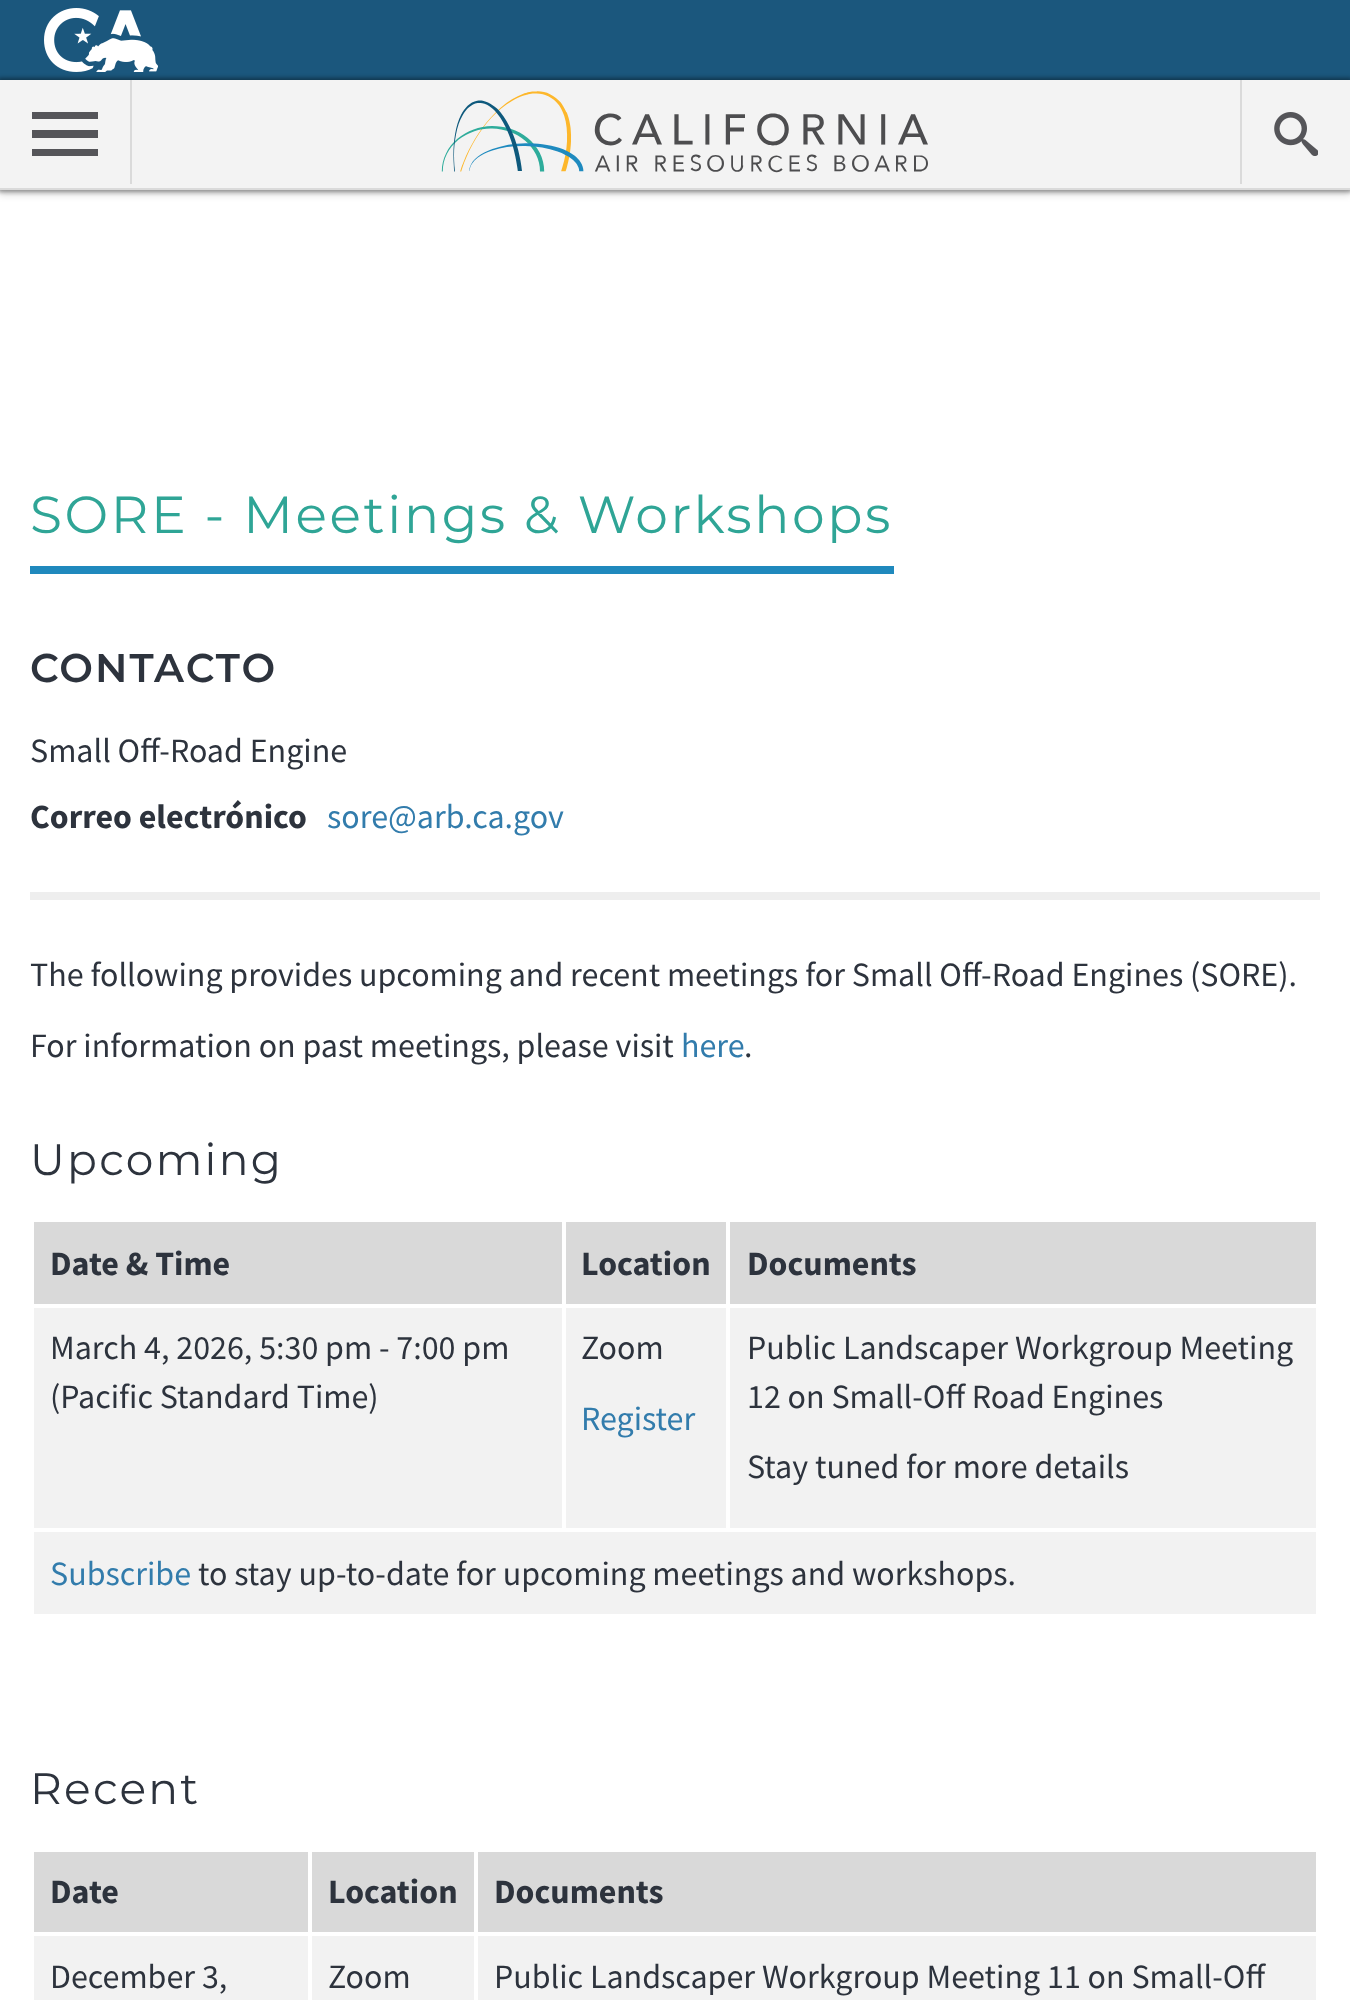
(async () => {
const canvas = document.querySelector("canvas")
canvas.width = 1350
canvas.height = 2000
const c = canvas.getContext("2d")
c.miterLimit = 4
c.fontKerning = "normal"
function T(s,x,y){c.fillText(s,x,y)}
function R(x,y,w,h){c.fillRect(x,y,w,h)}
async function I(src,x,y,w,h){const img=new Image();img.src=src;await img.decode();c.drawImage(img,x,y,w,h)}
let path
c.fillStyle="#fff"
R(0,0,1350,2000)
c.fillStyle="#0000001a"
c.filter="blur(3px)"
c.beginPath()
c.rect(0,6,1350,190)
c.fill()
c.filter="none"
c.fillStyle="#1b577d"
R(0,0,1350,80)
c.fillStyle="#00000066"
c.filter="blur(2px)"
c.beginPath()
c.rect(-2,78,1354,114)
c.fill()
c.filter="none"
await I("1.png",44,8,114,64)
c.fillStyle="#f3f3f3"
R(0,80,1350,108)
c.fillStyle="#dadada"
R(0,188,1350,2)
R(130,80,2,104)
c.fillStyle="#555559"
path = new Path2D("M32 156h66v-7h-66zm0-18h66v-8h-66zm0-26v7h66v-7z")
c.fill(path)
await I("2.png",441,91,487,82)
c.fillStyle="#dadada"
R(1240,80,2,104)
await I("3.png",1274,112,44,44)
c.fillStyle="#1f89bd"
R(30,566,864,8)
c.letterSpacing="2.6px"
c.font="52px Montserrat"
c.fillStyle="#2fa596"
T("SORE - Meetings & Workshops",30,533)
c.fillStyle="#eee"
R(30,892,1290,8)
c.letterSpacing="2px"
c.font="600 40px Montserrat"
c.fillStyle="#2d333d"
T("CONTACTO",30,682)
c.letterSpacing="0px"
c.font="34px Source Sans Pro"
T("Small Off-Road Engine",30,762)
c.font="bold 34px Source Sans Pro"
T("Correo electrónico",30,828)
c.font="34px Source Sans Pro"
c.fillStyle="#327cac"
T("sore@arb.ca.gov",327,828)
c.fillStyle="#2d333d"
T("The following provides upcoming and recent meetings for Small Off-Road Engines (SORE).",30,986)
T("For information on past meetings, please visit",30,1057)
c.fillStyle="#327cac"
T("here",681,1057)
c.fillStyle="#2d333d"
T(".",744,1057)
c.letterSpacing="2.25px"
c.font="44px Montserrat"
T("Upcoming",30,1175)
c.fillStyle="#d9d9d9"
R(34,1222,528,82)
c.letterSpacing="0px"
c.font="bold 34px Source Sans Pro"
c.fillStyle="#2d333d"
T("Date & Time",50,1275)
c.fillStyle="#d9d9d9"
R(566,1222,160,82)
c.fillStyle="#2d333d"
T("Location",581,1275)
c.fillStyle="#d9d9d9"
R(730,1222,586,82)
c.fillStyle="#2d333d"
T("Documents",747,1275)
c.fillStyle="#f2f2f2"
R(34,1308,528,220)
c.font="34px Source Sans Pro"
c.fillStyle="#2d333d"
T("March 4, 2026, 5:30 pm - 7:00 pm",50,1359)
T("(Pacific Standard Time)",50,1408)
c.fillStyle="#f2f2f2"
R(566,1308,160,220)
c.fillStyle="#2d333d"
T("Zoom",581,1359)
c.fillStyle="#327cac"
T("Register",581,1430)
c.fillStyle="#f2f2f2"
R(730,1308,586,220)
c.fillStyle="#2d333d"
T("Public Landscaper Workgroup Meeting",747,1359)
T("12 on Small-Off Road Engines",747,1408)
T("Stay tuned for more details",747,1478)
c.fillStyle="#f2f2f2"
R(34,1532,1282,82)
c.fillStyle="#327cac"
T("Subscribe",50,1585)
c.fillStyle="#2d333d"
T("to stay up-to-date for upcoming meetings and workshops.",198,1585)
c.letterSpacing="2.25px"
c.font="44px Montserrat"
T("Recent",30,1804)
c.fillStyle="#d9d9d9"
R(34,1852,274,80)
c.letterSpacing="0px"
c.font="bold 34px Source Sans Pro"
c.fillStyle="#2d333d"
T("Date",50,1903)
c.fillStyle="#d9d9d9"
R(312,1852,162,80)
c.fillStyle="#2d333d"
T("Location",328,1903)
c.fillStyle="#d9d9d9"
R(478,1852,838,80)
c.fillStyle="#2d333d"
T("Documents",494,1903)
c.fillStyle="#f2f2f2"
R(34,1936,274,64)
c.font="34px Source Sans Pro"
c.fillStyle="#2d333d"
T("December 3,",50,1988)
c.fillStyle="#f2f2f2"
R(312,1936,162,64)
c.fillStyle="#2d333d"
T("Zoom",328,1988)
c.fillStyle="#f2f2f2"
R(478,1936,838,64)
c.fillStyle="#2d333d"
T("Public Landscaper Workgroup Meeting 11 on Small-Off",494,1988)
})()
